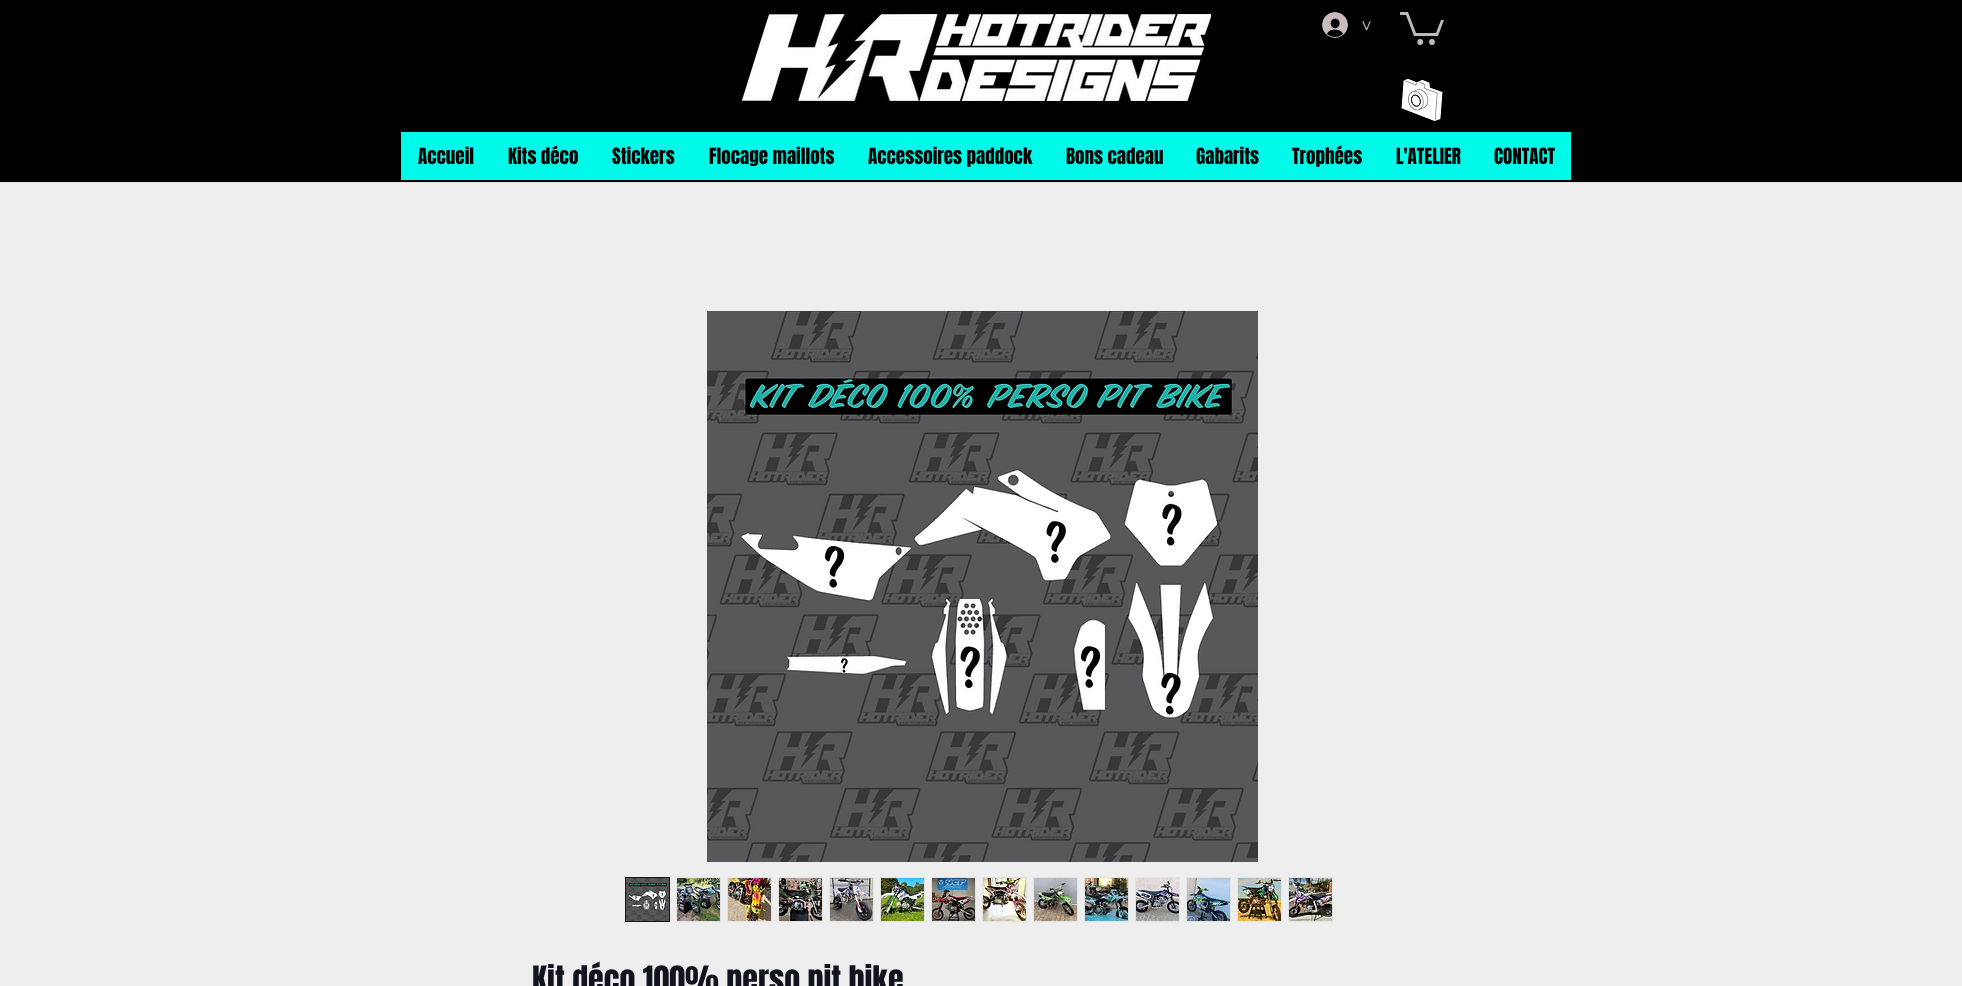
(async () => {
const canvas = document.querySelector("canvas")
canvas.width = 1962
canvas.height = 986
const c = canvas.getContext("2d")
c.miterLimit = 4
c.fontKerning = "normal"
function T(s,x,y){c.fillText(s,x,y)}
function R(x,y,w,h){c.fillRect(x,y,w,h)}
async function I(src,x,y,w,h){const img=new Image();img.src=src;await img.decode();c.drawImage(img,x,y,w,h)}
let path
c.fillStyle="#eee"
R(0,0,1962,986)
c.fillStyle="#000"
R(0,0,1962,182)
c.fillStyle="#e3e3e3"
R(0,182,1962,1)
await I("1.png",742,14,469,87)
await I("2.png",1322,12,26,26)
c.font="17px Raleway"
c.fillStyle="#c8bdbb"
T("v",1362,30)
c.fillStyle="#bbb"
path = new Path2D("M1444 20l-6 16h-24l-8-21h-6v-3h8l8 21h20l5-13")
c.fill(path)
c.beginPath()
c.arc(1432,42,2.9,0,7)
c.fill()
c.beginPath()
c.arc(1420.2,42,2.9,0,7)
c.fill()
await I("3.png",1401,79,42,42)
c.fillStyle="#00fae9"
R(401,132,1170,48)
c.font="19px Anton"
c.fillStyle="#000"
T("Accueil",418,164)
T("Kits déco",508,164)
T("Stickers",612,164)
T("Flocage maillots",709,164)
T("Accessoires paddock",868,164)
T("Bons cadeau",1066,164)
T("Gabarits",1196,164)
T("Trophées",1292,164)
T("L'ATELIER",1396,164)
T("CONTACT",1494,164)
await I("4.png",707,311,551,551)
c.strokeStyle="#11141d"
c.strokeRect(625.5,877.5,44,44)
await I("5.png",626,878,43,43)
c.fillStyle="#e3e3e3"
R(676,877,45,45)
await I("6.png",677,878,43,43)
R(727,877,45,45)
await I("7.png",728,878,43,43)
R(778,877,45,45)
await I("8.png",779,878,43,43)
R(829,877,45,45)
await I("9.png",830,878,43,43)
R(880,877,45,45)
await I("10.png",881,878,43,43)
R(931,877,45,45)
await I("11.png",932,878,43,43)
R(982,877,45,45)
await I("12.png",983,878,43,43)
R(1033,877,45,45)
await I("13.png",1034,878,43,43)
R(1084,877,45,45)
await I("14.png",1085,878,43,43)
R(1135,877,45,45)
await I("15.png",1136,878,43,43)
R(1186,877,45,45)
await I("16.png",1187,878,43,43)
R(1237,877,45,45)
await I("17.png",1238,878,43,43)
R(1288,877,45,45)
await I("18.png",1289,878,43,43)
c.font="32px Anton"
c.fillStyle="#11141d"
T("Kit déco 100% perso pit bike",532,993)
})()
